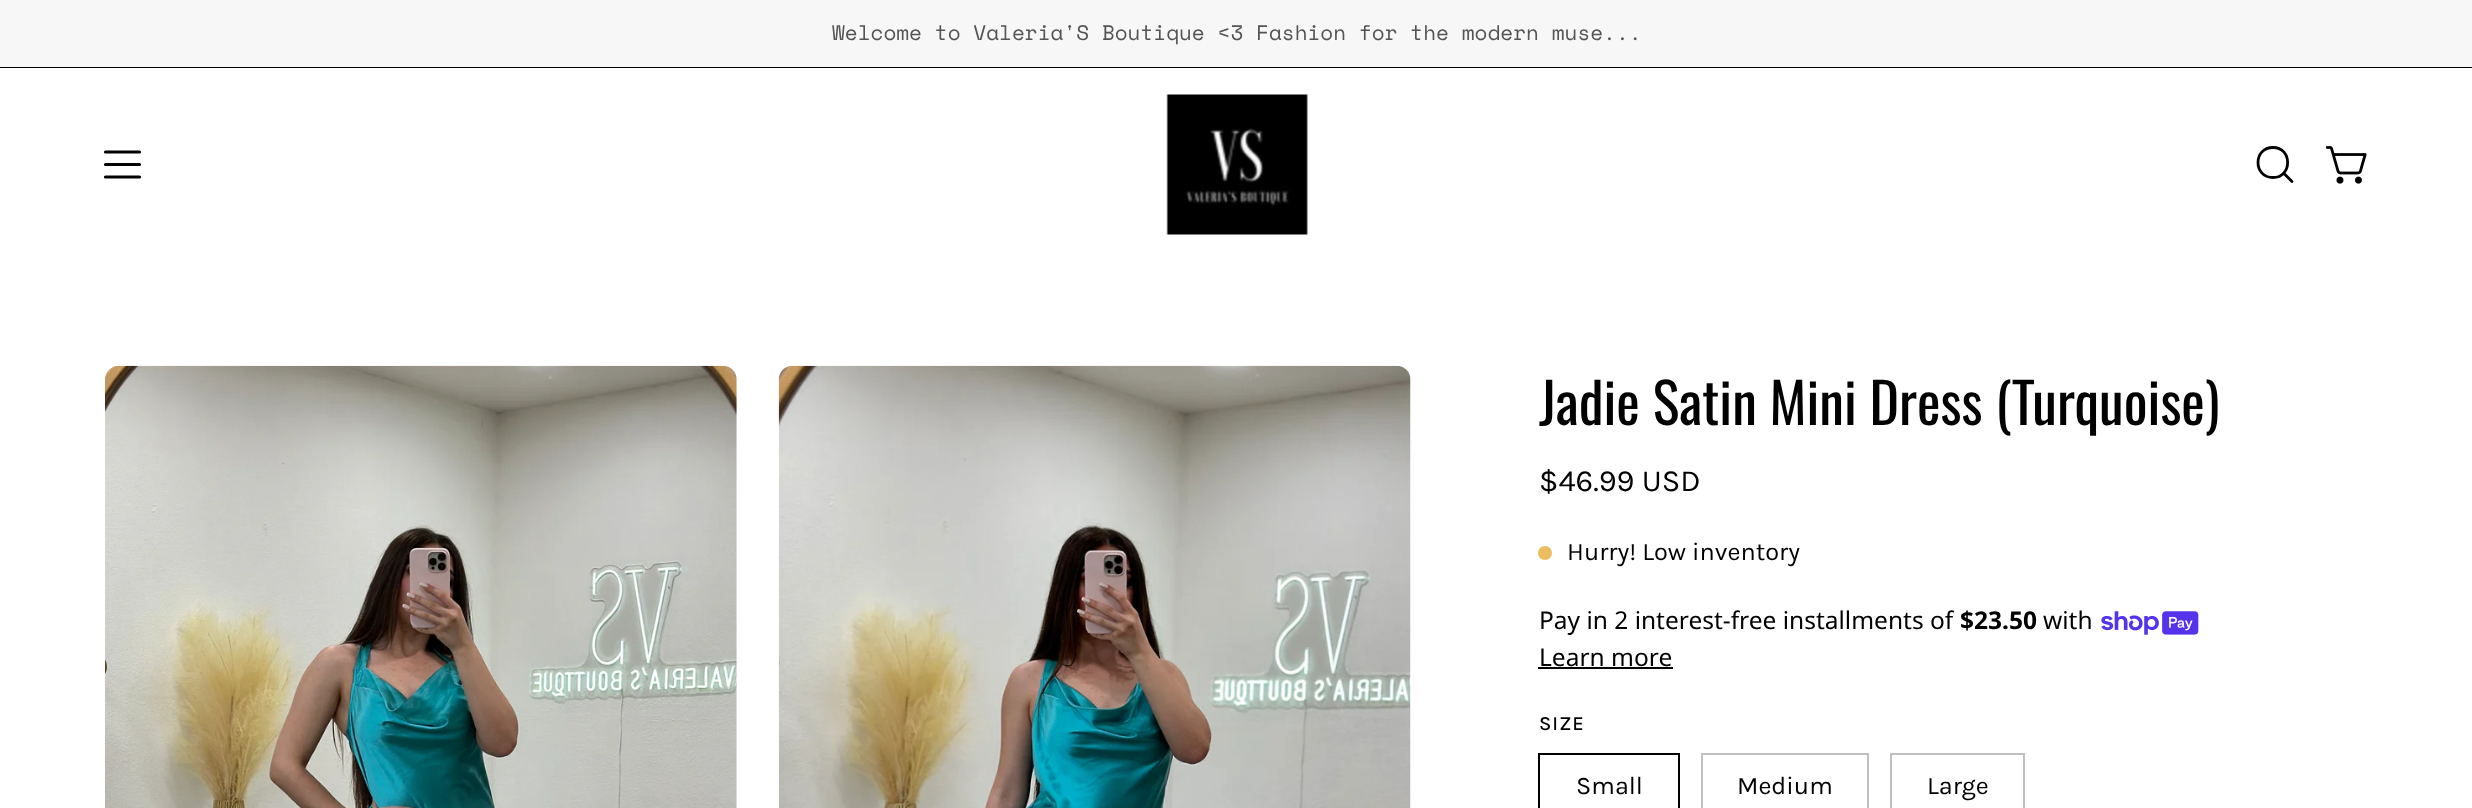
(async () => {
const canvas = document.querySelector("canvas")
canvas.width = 2472
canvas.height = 808
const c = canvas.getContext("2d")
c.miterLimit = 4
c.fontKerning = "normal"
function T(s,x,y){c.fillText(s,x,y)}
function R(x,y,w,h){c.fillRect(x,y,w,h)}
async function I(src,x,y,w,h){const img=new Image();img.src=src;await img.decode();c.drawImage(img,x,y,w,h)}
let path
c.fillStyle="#fff"
R(0,0,2472,808)
c.fillStyle="#f7f7f7"
R(0,0,2472,67)
c.fillStyle="#000"
R(0,67,2472,1)
c.font="21px Space Mono"
c.fillStyle="#545454"
T("Welcome to Valeria'S Boutique <3 Fashion for the modern muse...",832,40)
path = new Path2D("M105.5 164.5h34m-34-12.5h34m-34 25h34")
c.strokeStyle="#000"
c.lineWidth=3.1
c.lineCap="round"
c.lineJoin="round"
c.stroke(path)
await I("1.png",1166,94,142,141)
path = new Path2D("M2273 177.5c19.5 0 19.5-30 0-30c-20 0-20 30 0 30zm10.5-4.5l8.5 8.5")
c.lineWidth=2.8
c.stroke(path)
await I("2.png",2326,146,41,38)
await I("3.png",105,365,632,443)
await I("4.png",778,365,633,443)
c.font="56px Oswald"
c.fillStyle="#000"
T("Jadie Satin Mini Dress (Turquoise)",1539,425)
c.font="30.75px Karla"
T("$46.99 USD",1539,491)
c.fillStyle="#ecbd5e"
c.beginPath()
c.arc(1545,553,7,0,7)
c.fill()
c.font="25.25px Karla"
c.fillStyle="#000"
T("Hurry! Low inventory",1567,560)
c.font="24.5px Noto Sans"
T("Pay in 2 interest-free installments of",1539,629)
c.font="bold 24.5px Noto Sans"
T("$23.50",1960,629)
c.font="24.5px Noto Sans"
T("with",2043,629)
await I("5.png",2101,611,98,24)
T("Learn more",1539,666)
R(1538,667,135,2)
c.letterSpacing="1px"
c.font="500 20px Karla"
T("SIZE",1539,730)
c.lineWidth=2
c.lineJoin="miter"
c.strokeRect(1539,754,140,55)
c.letterSpacing="0px"
c.font="25.25px Karla"
T("Small",1576,794)
c.strokeStyle="#bfbfbf"
c.strokeRect(1702,754,166,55)
T("Medium",1737,794)
c.strokeRect(1891,754,133,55)
T("Large",1927,794)
})()
